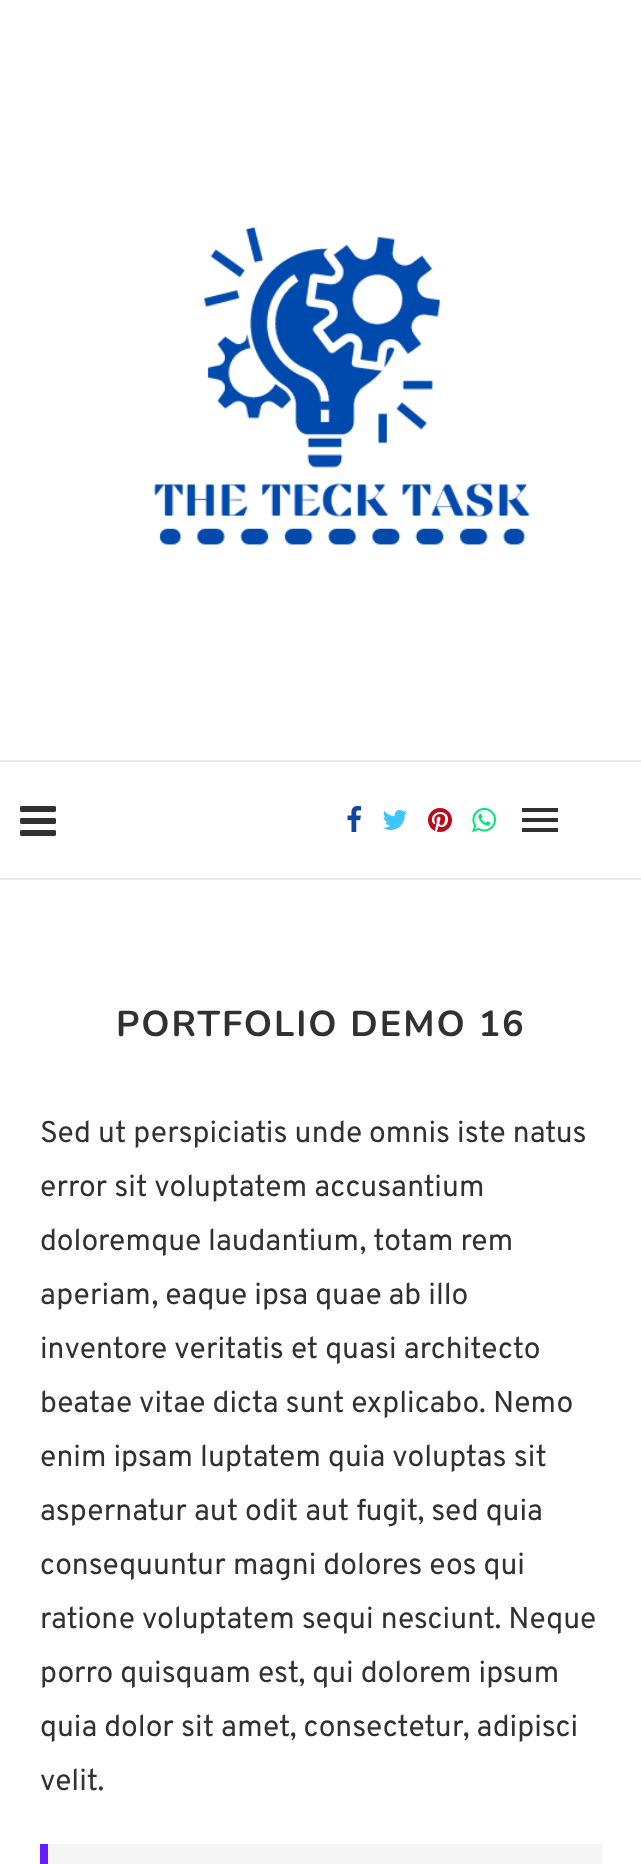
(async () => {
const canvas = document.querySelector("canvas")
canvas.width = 641
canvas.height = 1864
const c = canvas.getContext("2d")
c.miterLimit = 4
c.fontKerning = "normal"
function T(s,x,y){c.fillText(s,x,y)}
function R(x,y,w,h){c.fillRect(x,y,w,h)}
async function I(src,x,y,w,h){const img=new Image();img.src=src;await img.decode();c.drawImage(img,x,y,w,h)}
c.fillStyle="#fff"
R(0,0,641,1864)
await I("1.png",154,227,376,318)
c.fillStyle="#ececec"
R(0,760,641,2)
R(0,878,641,2)
await I("2.png",20,806,36,30)
await I("3.png",347,806,14,26)
await I("4.png",382,810,26,20)
await I("5.png",428,808,24,24)
await I("6.png",472,807,24,25)
c.fillStyle="#313131"
R(522,808,36,4)
R(522,828,36,4)
R(522,818,36,4)
c.letterSpacing="2px"
c.font="bold 36px Nunito"
T("PORTFOLIO DEMO 16",116,1036)
c.letterSpacing="0px"
c.font="30px Overpass"
T("Sed ut perspiciatis unde omnis iste natus",40,1142)
T("error sit voluptatem accusantium",40,1196)
T("doloremque laudantium, totam rem",40,1250)
T("aperiam, eaque ipsa quae ab illo",40,1304)
T("inventore veritatis et quasi architecto",40,1358)
T("beatae vitae dicta sunt explicabo. Nemo",40,1412)
T("enim ipsam luptatem quia voluptas sit",40,1466)
T("aspernatur aut odit aut fugit, sed quia",40,1520)
T("consequuntur magni dolores eos qui",40,1574)
T("ratione voluptatem sequi nesciunt. Neque",40,1628)
T("porro quisquam est, qui dolorem ipsum",40,1682)
T("quia dolor sit amet, consectetur, adipisci",40,1736)
T("velit.",40,1790)
c.fillStyle="#f5f5f5"
R(48,1844,554,20)
c.fillStyle="#651fff"
R(40,1844,8,20)
})()
